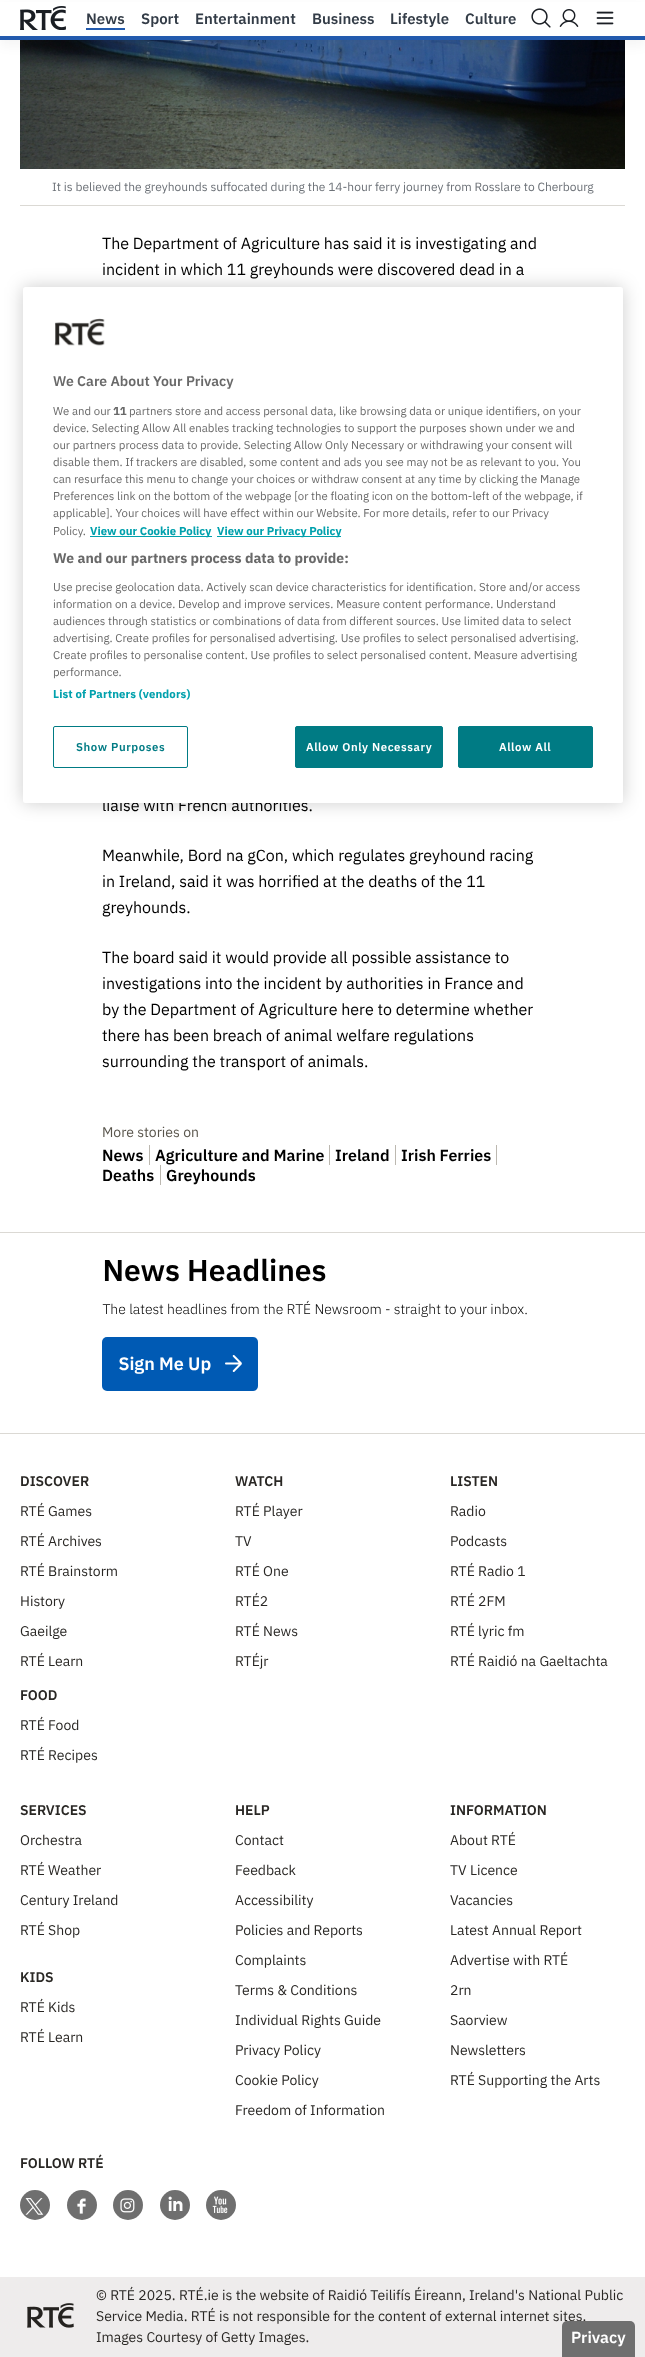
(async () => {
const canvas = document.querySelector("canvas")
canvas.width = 645
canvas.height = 2357
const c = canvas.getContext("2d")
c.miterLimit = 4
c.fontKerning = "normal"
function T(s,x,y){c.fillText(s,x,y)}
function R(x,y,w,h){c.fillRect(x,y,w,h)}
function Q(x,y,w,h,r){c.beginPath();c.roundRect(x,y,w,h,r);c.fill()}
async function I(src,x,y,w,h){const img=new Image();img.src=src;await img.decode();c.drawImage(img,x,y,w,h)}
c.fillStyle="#fff"
R(0,0,645,2357)
await I("5.png",20,40,605,129)
c.fillStyle="#0000000a"
c.filter="blur(5.5px)"
c.beginPath()
c.rect(0,6,645,40)
c.fill()
c.filter="none"
c.fillStyle="#fff"
R(0,2,645,34)
c.fillStyle="#235bae"
R(0,36,645,4)
await I("1.png",20,6,46,24)
c.font="600 15px IBM Plex Sans"
c.fillStyle="#333c47"
T("News",86,24)
c.fillStyle="#235bae"
R(86,28,39,2)
c.fillStyle="#333c47"
T("Sport",141,24)
T("Entertainment",195,24)
T("Business",312,24)
T("Lifestyle",390,24)
T("Culture",465,24)
await I("2.png",531,8,20,20)
await I("3.png",559,9,20,18)
await I("4.png",596,11,18,14)
c.fillStyle="#dbd9d4"
R(0,1433,645,1)
R(20,205,605,1)
c.font="12px IBM Plex Sans"
c.fillStyle="#6d7278"
T("It is believed the greyhounds suffocated during the 14-hour ferry journey from Rosslare to Cherbourg",52,191)
c.font="16px IBM Plex Sans"
c.fillStyle="#000"
T("The Department of Agriculture has said it is investigating and",102,249)
T("incident in which 11 greyhounds were discovered dead in a",102,275)
T("liaise with French authorities.",102,811)
T("Meanwhile, Bord na gCon, which regulates greyhound racing",102,861)
T("in Ireland, said it was horrified at the deaths of the 11",102,887)
T("greyhounds.",102,913)
T("The board said it would provide all possible assistance to",102,963)
T("investigations into the incident by authorities in France and",102,989)
T("by the Department of Agriculture here to determine whether",102,1015)
T("there has been breach of animal welfare regulations",102,1041)
T("surrounding the transport of animals.",102,1067)
c.font="14px IBM Plex Sans"
c.fillStyle="#59554c"
T("More stories on",102,1137)
c.fillStyle="#bcb8b0"
R(149,1145,1,20)
c.font="600 16px IBM Plex Sans"
c.fillStyle="#000"
T("News",102,1161)
c.fillStyle="#bcb8b0"
R(329,1145,1,20)
c.fillStyle="#000"
T("Agriculture and Marine",155,1161)
c.fillStyle="#bcb8b0"
R(395,1145,1,20)
c.fillStyle="#000"
T("Ireland",335,1161)
c.fillStyle="#bcb8b0"
R(496,1145,1,20)
c.fillStyle="#000"
T("Irish Ferries",401,1161)
c.fillStyle="#bcb8b0"
R(160,1165,1,20)
c.fillStyle="#000"
T("Deaths",102,1181)
T("Greyhounds",166,1181)
c.fillStyle="#dbd9d4"
R(0,1232,645,1)
await I("6.png",102,1258,425,133)
c.fillStyle="#00000033"
c.filter="blur(9px)"
c.beginPath()
c.roundRect(23,287,600,516,2.5)
c.fill()
c.filter="none"
c.fillStyle="#fff"
Q(23,287,600,516,2.5)
await I("7.png",54,318,51,28)
c.font="600 14px IBM Plex Sans"
c.fillStyle="#696969"
T("We Care About Your Privacy",53,386)
c.font="11.4px IBM Plex Sans"
T("We and our",53,415)
c.font="bold 11.4px IBM Plex Sans"
T("11",113,415)
c.font="11.4px IBM Plex Sans"
T("partners store and access personal data, like browsing data or unique identifiers, on your",129,415)
T("device. Selecting Allow All enables tracking technologies to support the purposes shown under we and",53,432)
T("our partners process data to provide. Selecting Allow Only Necessary or withdrawing your consent will",53,449)
T("disable them. If trackers are disabled, some content and ads you see may not be as relevant to you. You",53,466)
T("can resurface this menu to change your choices or withdraw consent at any time by clicking the Manage",53,483)
T("Preferences link on the bottom of the webpage [or the floating icon on the bottom-left of the webpage, if",53,500)
T("applicable]. Your choices will have effect within our Website. For more details, refer to our Privacy",53,517)
T("Policy.",53,535)
c.fillStyle="#00a1ad"
R(90,536,122,1)
c.font="bold 11.4px IBM Plex Sans"
T("View our Cookie Policy",90,535)
R(217,536,124,1)
T("View our Privacy Policy",217,535)
c.font="bold 14px IBM Plex Sans"
c.fillStyle="#696969"
T("We and our partners process data to provide:",53,563)
c.font="11.4px IBM Plex Sans"
T("Use precise geolocation data. Actively scan device characteristics for identification. Store and/or access",53,591)
T("information on a device. Develop and improve services. Measure content performance. Understand",53,608)
T("audiences through statistics or combinations of data from different sources. Use limited data to select",53,625)
T("advertising. Create profiles for personalised advertising. Use profiles to select personalised advertising.",53,642)
T("Create profiles to personalise content. Use profiles to select personalised content. Measure advertising",53,659)
T("performance.",53,676)
c.letterSpacing="0.1px"
c.font="bold 11.4px IBM Plex Sans"
c.fillStyle="#00a1ad"
T("List of Partners (vendors)",53,698)
c.beginPath()
c.roundRect(53.5,726.5,134,41,1.5)
c.strokeStyle="#007b84"
c.stroke()
c.letterSpacing="0.6px"
c.font="600 11.4px IBM Plex Sans"
c.fillStyle="#007b84"
T("Show Purposes",76,751)
c.beginPath()
c.roundRect(295.5,726.5,147,41,1.5)
c.fill()
c.stroke()
c.fillStyle="#fff"
T("Allow Only Necessary",306,751)
c.fillStyle="#007b84"
c.beginPath()
c.roundRect(458.5,726.5,134,41,1.5)
c.fill()
c.stroke()
c.fillStyle="#fff"
T("Allow All",499,751)
c.letterSpacing="0px"
c.font="600 14px IBM Plex Sans"
c.fillStyle="#292724"
T("DISCOVER",20,1486)
c.font="14px IBM Plex Sans"
T("RTÉ Games",20,1516)
T("RTÉ Archives",20,1546)
T("RTÉ Brainstorm",20,1576)
T("History",20,1606)
T("Gaeilge",20,1636)
T("RTÉ Learn",20,1666)
c.font="600 14px IBM Plex Sans"
T("FOOD",20,1700)
c.font="14px IBM Plex Sans"
T("RTÉ Food",20,1730)
T("RTÉ Recipes",20,1760)
c.font="600 14px IBM Plex Sans"
T("WATCH",235,1486)
c.font="14px IBM Plex Sans"
T("RTÉ Player",235,1516)
T("TV",235,1546)
T("RTÉ One",235,1576)
T("RTÉ2",235,1606)
T("RTÉ News",235,1636)
T("RTÉjr",235,1666)
c.font="600 14px IBM Plex Sans"
T("LISTEN",450,1486)
c.font="14px IBM Plex Sans"
T("Radio",450,1516)
T("Podcasts",450,1546)
T("RTÉ Radio 1",450,1576)
T("RTÉ 2FM",450,1606)
T("RTÉ lyric fm",450,1636)
T("RTÉ Raidió na Gaeltachta",450,1666)
c.font="600 14px IBM Plex Sans"
T("SERVICES",20,1815)
c.font="14px IBM Plex Sans"
T("Orchestra",20,1845)
T("RTÉ Weather",20,1875)
T("Century Ireland",20,1905)
T("RTÉ Shop",20,1935)
c.font="600 14px IBM Plex Sans"
T("KIDS",20,1982)
c.font="14px IBM Plex Sans"
T("RTÉ Kids",20,2012)
T("RTÉ Learn",20,2042)
c.font="600 14px IBM Plex Sans"
T("HELP",235,1815)
c.font="14px IBM Plex Sans"
T("Contact",235,1845)
T("Feedback",235,1875)
T("Accessibility",235,1905)
T("Policies and Reports",235,1935)
T("Complaints",235,1965)
T("Terms & Conditions",235,1995)
T("Individual Rights Guide",235,2025)
T("Privacy Policy",235,2055)
T("Cookie Policy",235,2085)
T("Freedom of Information",235,2115)
c.font="600 14px IBM Plex Sans"
T("INFORMATION",450,1815)
c.font="14px IBM Plex Sans"
T("About RTÉ",450,1845)
T("TV Licence",450,1875)
T("Vacancies",450,1905)
T("Latest Annual Report",450,1935)
T("Advertise with RTÉ",450,1965)
T("2rn",450,1995)
T("Saorview",450,2025)
T("Newsletters",450,2055)
T("RTÉ Supporting the Arts",450,2085)
c.font="600 14px IBM Plex Sans"
T("FOLLOW RTÉ",20,2168)
c.fillStyle="#6f6f6f"
c.beginPath()
c.arc(35,2205,15,0,7)
c.fill()
await I("8.png",25,2198,19,17)
c.beginPath()
c.arc(82,2205,15,0,7)
c.fill()
await I("9.png",77,2198,9,16)
c.beginPath()
c.arc(128,2205,15,0,7)
c.fill()
await I("10.png",120,2198,15,15)
c.beginPath()
c.arc(175,2205,15,0,7)
c.fill()
await I("11.png",168,2196,15,15)
c.beginPath()
c.arc(221,2205,15,0,7)
c.fill()
await I("12.png",212,2196,16,18)
c.fillStyle="#eeecec"
R(0,2277,645,80)
await I("13.png",27,2303,47,25)
c.font="14px IBM Plex Sans"
c.fillStyle="#292724"
T("© RTÉ 2025. RTÉ.ie is the website of Raidió Teilifís Éireann, Ireland's National Public",96,2300)
T("Service Media. RTÉ is not responsible for the content of external internet sites.",96,2321)
T("Images Courtesy of Getty Images.",96,2342)
c.fillStyle="#6f6f6f"
c.beginPath()
c.roundRect(562,2321,73,36,[5,5,0,0])
c.fill()
c.font="600 16px IBM Plex Sans"
c.fillStyle="#fff"
T("Privacy",571,2343)
})()
